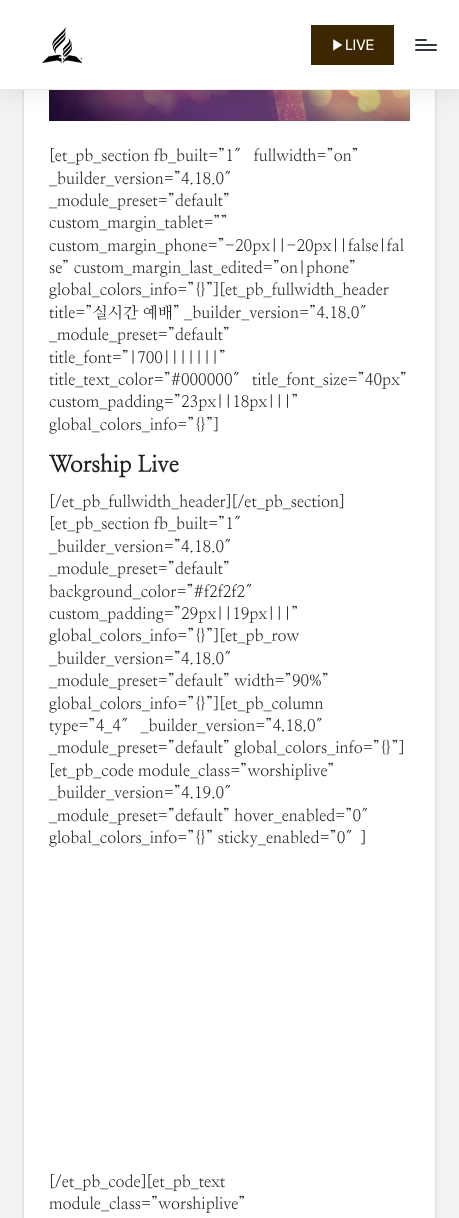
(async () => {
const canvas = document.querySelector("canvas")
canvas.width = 459
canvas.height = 1218
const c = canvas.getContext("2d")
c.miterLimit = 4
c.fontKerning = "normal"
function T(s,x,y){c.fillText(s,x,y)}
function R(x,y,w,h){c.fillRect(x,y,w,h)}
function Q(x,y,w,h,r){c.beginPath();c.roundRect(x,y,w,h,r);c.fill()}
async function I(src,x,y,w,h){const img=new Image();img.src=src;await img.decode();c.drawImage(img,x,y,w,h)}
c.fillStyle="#f2f2f2"
R(0,0,459,1218)
c.fillStyle="#0000002e"
c.filter="blur(1.5px)"
c.beginPath()
c.rect(24,-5,411,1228)
c.fill()
c.filter="none"
c.fillStyle="#fff"
R(24,90,411,1128)
await I("2.png",49,90,361,31)
c.fillStyle="#00000014"
c.filter="blur(12px)"
c.beginPath()
c.rect(0,3,459,90)
c.fill()
c.filter="none"
c.fillStyle="#fff"
R(0,0,459,89)
c.fillStyle="#e9e9e9"
R(0,89,459,1)
await I("1.png",42,26,41,38)
c.fillStyle="#3d2700"
R(311,25,83,40)
c.font="500 14px WenQuanYi Zen Hei"
c.fillStyle="#fff"
T("▶︎",331,50)
c.font="500 14px Plus Jakarta Sans"
T("LIVE",345,50)
c.fillStyle="#30373e"
Q(415,44,22,2,1)
Q(415,39,12,2,1)
Q(415,49,22,2,1)
c.font="16px NanumMyeongjo"
c.fillStyle="#212121"
T("[et_pb_section fb_built=”1″ fullwidth=”on”",49,161)
T("_builder_version=”4.18.0″",49,184)
T("_module_preset=”default”",49,206)
T("custom_margin_tablet=””",49,228)
T("custom_margin_phone=”-20px||-20px||false|fal",49,251)
T("se” custom_margin_last_edited=”on|phone”",49,273)
T("global_colors_info=”{}”][et_pb_fullwidth_header",49,295)
T("title=”실시간 예배” _builder_version=”4.18.0″",49,318)
T("_module_preset=”default”",49,340)
T("title_font=”|700|||||||”",49,363)
T("title_text_color=”#000000″ title_font_size=”40px”",49,385)
T("custom_padding=”23px||18px|||”",49,407)
T("global_colors_info=”{}”]",49,430)
c.font="bold 22.5px NanumMyeongjo"
T("Worship Live",49,472)
c.font="16px NanumMyeongjo"
T("[/et_pb_fullwidth_header][/et_pb_section]",49,507)
T("[et_pb_section fb_built=”1″",49,529)
T("_builder_version=”4.18.0″",49,552)
T("_module_preset=”default”",49,574)
T("background_color=”#f2f2f2″",49,597)
T("custom_padding=”29px||19px|||”",49,619)
T("global_colors_info=”{}”][et_pb_row",49,641)
T("_builder_version=”4.18.0″",49,664)
T("_module_preset=”default” width=”90%”",49,686)
T("global_colors_info=”{}”][et_pb_column",49,709)
T("type=”4_4″ _builder_version=”4.18.0″",49,731)
T("_module_preset=”default” global_colors_info=”{}”]",49,753)
T("[et_pb_code module_class=”worshiplive”",49,776)
T("_builder_version=”4.19.0″",49,798)
T("_module_preset=”default” hover_enabled=”0″",49,821)
T("global_colors_info=”{}” sticky_enabled=”0″]",49,843)
T("[/et_pb_code][et_pb_text",49,1187)
T("module_class=”worshiplive”",49,1209)
})()
